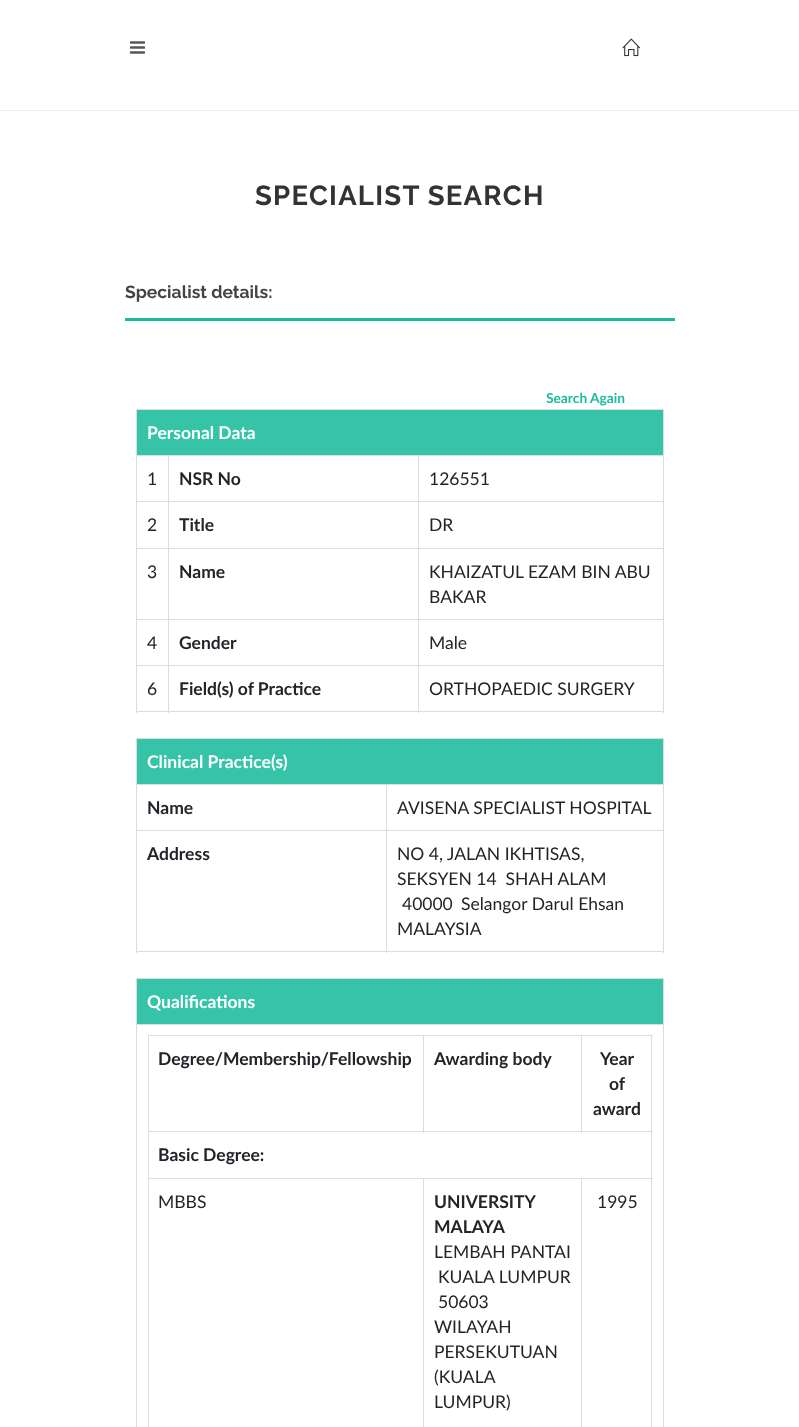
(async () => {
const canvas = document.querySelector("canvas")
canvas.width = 799
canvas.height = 1427
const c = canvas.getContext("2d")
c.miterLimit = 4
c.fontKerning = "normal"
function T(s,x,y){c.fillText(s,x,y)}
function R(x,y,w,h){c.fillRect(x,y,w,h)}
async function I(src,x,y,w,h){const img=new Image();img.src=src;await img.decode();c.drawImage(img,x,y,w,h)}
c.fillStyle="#fff"
R(0,0,799,1427)
c.fillStyle="#eee"
R(0,110,799,1)
await I("1.png",130,41,15,13)
await I("2.png",622,38,18,19)
c.letterSpacing="1.25px"
c.font="bold 27.5px Raleway"
c.fillStyle="#333"
T("SPECIALIST SEARCH",255,205)
c.fillStyle="#1abc9c"
R(125,318,550,3)
c.letterSpacing="0px"
c.font="bold 17.5px Raleway"
c.fillStyle="#444"
T("Specialist details:",125,298)
c.font="bold 13.75px Lato"
c.fillStyle="#1abc9c"
T("Search Again",546,403)
c.fillStyle="#ddd"
R(136,409,528,1)
R(663,409,1,304)
R(136,711,528,1)
R(136,409,1,304)
c.fillStyle="#36c4a8"
R(137,410,526,45)
c.font="bold 17.5px Lato"
c.fillStyle="#fff"
T("Personal Data",147,439)
c.fillStyle="#ddd"
R(418,455,246,1)
R(418,501,246,1)
R(418,548,246,1)
R(418,619,246,1)
R(418,665,246,1)
R(418,665,1,48)
R(168,665,251,1)
R(418,619,1,47)
R(168,619,251,1)
R(418,548,1,72)
R(168,548,251,1)
R(418,501,1,48)
R(168,501,251,1)
R(418,455,1,48)
R(168,455,251,1)
R(168,665,1,48)
R(136,665,33,1)
R(168,619,1,47)
R(136,619,33,1)
R(168,548,1,72)
R(136,548,33,1)
R(168,501,1,48)
R(136,501,33,1)
R(168,455,1,48)
R(136,455,33,1)
c.font="17.5px Lato"
c.fillStyle="#212529"
T("1",147,485)
c.font="bold 17.5px Lato"
T("NSR No",179,485)
c.font="17.5px Lato"
T("126551",429,485)
T("2",147,531)
c.font="bold 17.5px Lato"
T("Title",179,531)
c.font="17.5px Lato"
T("DR",429,531)
T("3",147,578)
c.font="bold 17.5px Lato"
T("Name",179,578)
c.font="17.5px Lato"
T("KHAIZATUL EZAM BIN ABU",429,578)
T("BAKAR",429,603)
T("4",147,649)
c.font="bold 17.5px Lato"
T("Gender",179,649)
c.font="17.5px Lato"
T("Male",429,649)
T("6",147,695)
c.font="bold 17.5px Lato"
T("Field(s) of Practice",179,695)
c.font="17.5px Lato"
T("ORTHOPAEDIC SURGERY",429,695)
c.fillStyle="#ddd"
R(136,738,528,1)
R(663,738,1,215)
R(136,951,528,1)
R(136,738,1,215)
c.fillStyle="#36c4a8"
R(137,739,526,45)
c.font="bold 17.5px Lato"
c.fillStyle="#fff"
T("Clinical Practice(s)",147,768)
c.fillStyle="#ddd"
R(386,784,278,1)
R(386,830,278,1)
R(386,830,1,123)
R(136,830,252,1)
R(386,784,1,47)
R(136,784,252,1)
c.fillStyle="#212529"
T("Name",147,814)
c.font="17.5px Lato"
T("AVISENA SPECIALIST HOSPITAL",397,814)
c.font="bold 17.5px Lato"
T("Address",147,860)
c.font="17.5px Lato"
T("NO 4, JALAN IKHTISAS,",397,860)
T("SEKSYEN 14  SHAH ALAM",397,885)
T("40000",402,910)
T("Selangor Darul Ehsan",461,910)
T("MALAYSIA",397,935)
c.fillStyle="#ddd"
R(136,978,528,1)
R(663,978,1,449)
R(136,978,1,449)
c.fillStyle="#36c4a8"
R(137,979,526,45)
c.font="bold 17.5px Lato"
c.fillStyle="#fff"
T("Qualifications",147,1008)
c.fillStyle="#ddd"
R(136,1024,528,1)
R(148,1035,505,1)
R(651,1035,1,392)
R(148,1035,1,392)
c.fillStyle="#212529"
T("Degree/Membership/Fellowship",158,1065)
c.fillStyle="#ddd"
R(148,1131,505,1)
R(423,1035,1,98)
c.fillStyle="#212529"
T("Awarding body",434,1065)
c.fillStyle="#ddd"
R(581,1035,1,98)
c.fillStyle="#212529"
T("Year",600,1065)
T("of",609,1090)
T("award",593,1115)
T("Basic Degree:",158,1161)
c.fillStyle="#ddd"
R(581,1178,72,1)
R(581,1178,1,249)
R(423,1178,160,1)
R(423,1178,1,249)
R(148,1178,276,1)
c.font="17.5px Lato"
c.fillStyle="#212529"
T("MBBS",158,1208)
c.font="bold 17.5px Lato"
T("UNIVERSITY",434,1208)
T("MALAYA",434,1233)
c.font="17.5px Lato"
T("LEMBAH PANTAI",434,1258)
T("KUALA LUMPUR",438,1283)
T("50603",438,1308)
T("WILAYAH",434,1333)
T("PERSEKUTUAN",434,1358)
T("(KUALA",434,1383)
T("LUMPUR)",434,1408)
T("1995",597,1208)
})()
